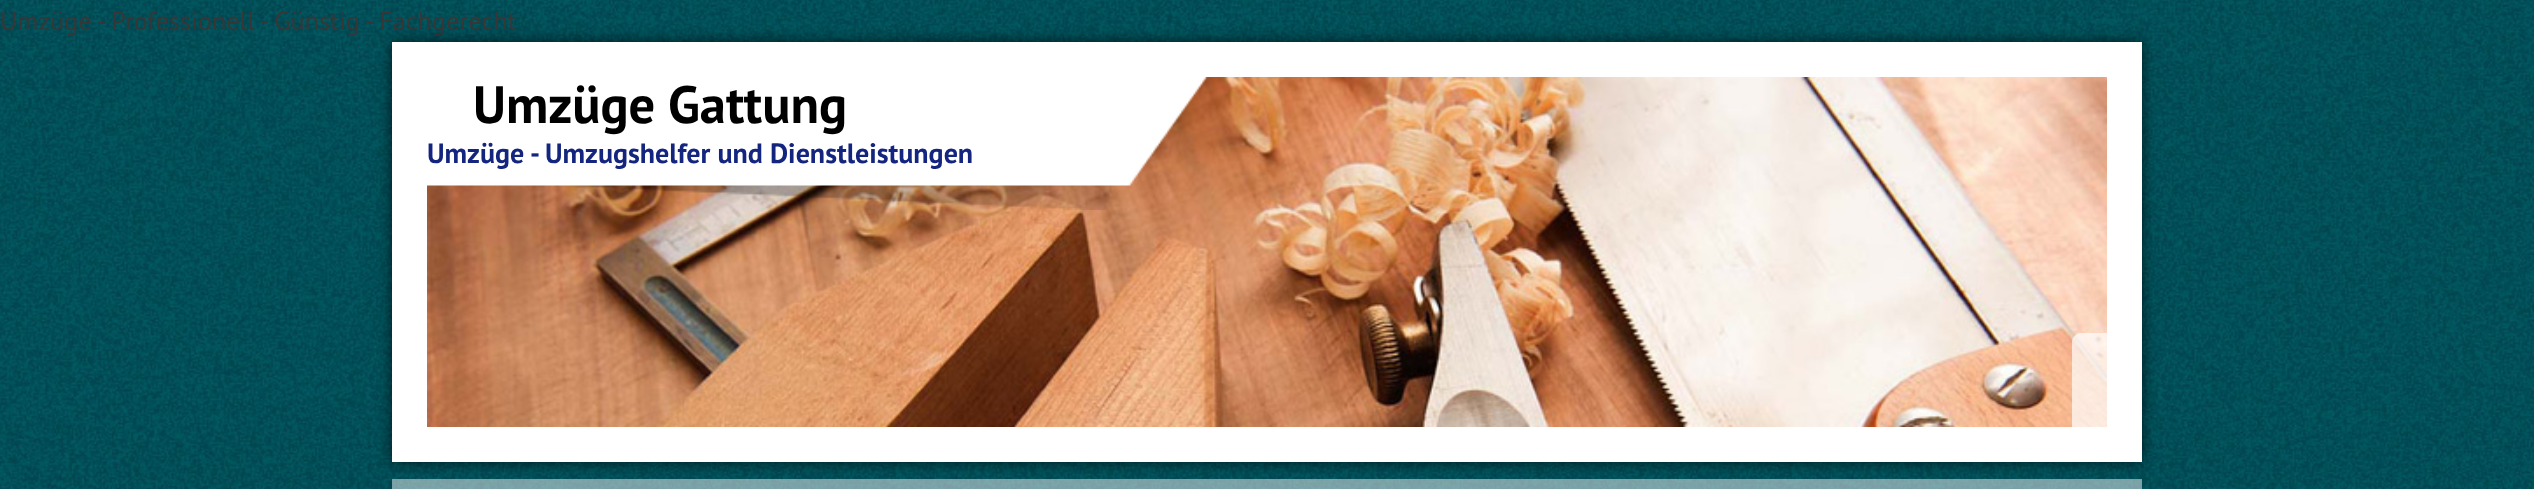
(async () => {
const canvas = document.querySelector("canvas")
canvas.width = 2534
canvas.height = 489
const c = canvas.getContext("2d")
c.miterLimit = 4
c.fontKerning = "normal"
function T(s,x,y){c.fillText(s,x,y)}
function R(x,y,w,h){c.fillRect(x,y,w,h)}
async function I(src,x,y,w,h){const img=new Image();img.src=src;await img.decode();c.drawImage(img,x,y,w,h)}
c.fillStyle="#fff"
R(0,0,2534,489)
await I("1.png",0,0,2534,489)
c.font="26.25px PT Sans"
c.fillStyle="#373737"
T("Umzüge - Professionell - Günstig - Fachgerecht",0,30)
c.fillStyle="#ffffff7a"
R(392,479,1750,10)
c.fillStyle="#000000b3"
c.filter="blur(7px)"
c.beginPath()
c.rect(392,42,1750,420)
c.fill()
c.filter="none"
c.fillStyle="#fff"
R(392,42,1750,420)
await I("2.png",427,77,1680,350)
await I("3.png",427,77,781,133)
c.font="bold 52.5px PT Sans"
c.fillStyle="#000"
T("Umzüge Gattung",473,123)
c.font="bold 28px PT Sans"
c.fillStyle="#13257e"
T("Umzüge - Umzugshelfer und Dienstleistungen",427,163)
c.fillStyle="#ffffffb3"
c.beginPath()
c.roundRect(2072,333,35,94,[9,0,0,0])
c.fill()
})()
